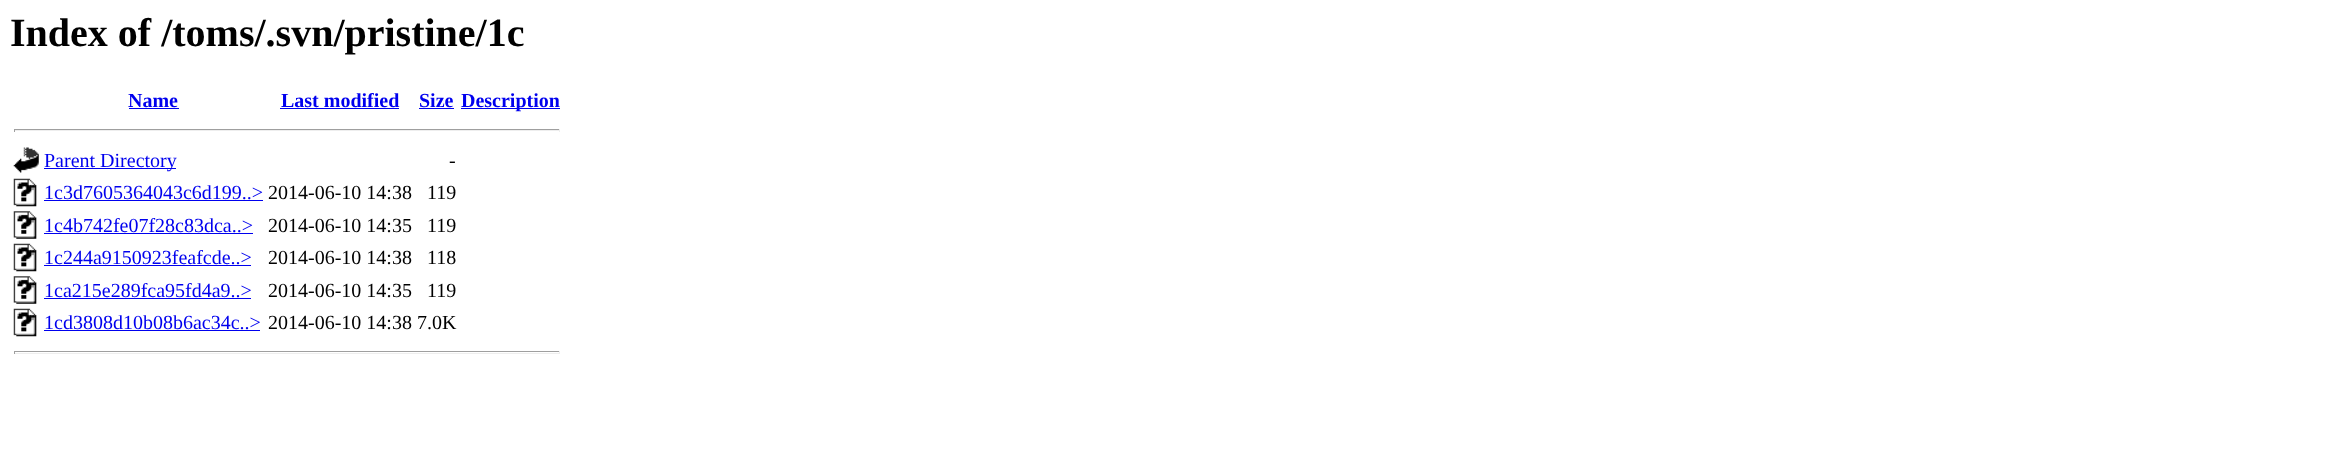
(async () => {
const canvas = document.querySelector("canvas")
canvas.width = 2333
canvas.height = 459
const c = canvas.getContext("2d")
c.miterLimit = 4
c.fontKerning = "normal"
function T(s,x,y){c.fillText(s,x,y)}
function R(x,y,w,h){c.fillRect(x,y,w,h)}
async function I(src,x,y,w,h){const img=new Image();img.src=src;await img.decode();c.drawImage(img,x,y,w,h)}
c.fillStyle="#fff"
R(0,0,2333,459)
c.font="bold 40px Liberation Serif"
c.fillStyle="#000"
T("Index of /toms/.svn/pristine/1c",10,46)
c.font="bold 20px Liberation Serif"
c.fillStyle="#00e"
T("Name",128,107)
R(129,108,50,1)
T("Last modified",281,107)
R(280,108,119,1)
T("Size",419,107)
R(419,108,35,1)
R(461,108,99,1)
T("Description",461,107)
c.fillStyle="#9f9f9f"
R(14,129,546,1)
c.fillStyle="#eee"
R(559,129,1,3)
R(14,130,546,1)
c.fillStyle="#9f9f9f"
R(14,129,1,3)
await I("1.png",13,147,26,26)
c.fillStyle="#00e"
R(44,168,132,1)
c.font="20px Liberation Serif"
T("Parent Directory",44,167)
c.fillStyle="#000"
T("-",449,167)
await I("2.png",13,178,24,29)
c.fillStyle="#00e"
T("1c3d7605364043c6d199..>",44,199)
R(44,200,219,1)
c.fillStyle="#000"
T("2014-06-10 14:38",268,199)
T("119",427,199)
await I("3.png",13,211,24,28)
c.fillStyle="#00e"
T("1c4b742fe07f28c83dca..>",44,232)
R(44,233,209,1)
c.fillStyle="#000"
T("2014-06-10 14:35",268,232)
T("119",427,232)
await I("2.png",13,243,24,29)
c.fillStyle="#00e"
T("1c244a9150923feafcde..>",44,264)
R(44,265,207,1)
c.fillStyle="#000"
T("2014-06-10 14:38",268,264)
T("118",427,264)
await I("4.png",13,276,24,28)
c.fillStyle="#00e"
T("1ca215e289fca95fd4a9..>",44,297)
R(44,298,207,1)
c.fillStyle="#000"
T("2014-06-10 14:35",268,297)
T("119",427,297)
await I("2.png",13,308,24,29)
c.fillStyle="#00e"
T("1cd3808d10b08b6ac34c..>",44,329)
R(44,330,216,1)
c.fillStyle="#000"
T("2014-06-10 14:38 7.0K",268,329)
c.fillStyle="#9f9f9f"
R(14,351,546,1)
c.fillStyle="#eee"
R(559,351,1,3)
R(14,353,546,1)
c.fillStyle="#9f9f9f"
R(14,351,1,3)
})()
